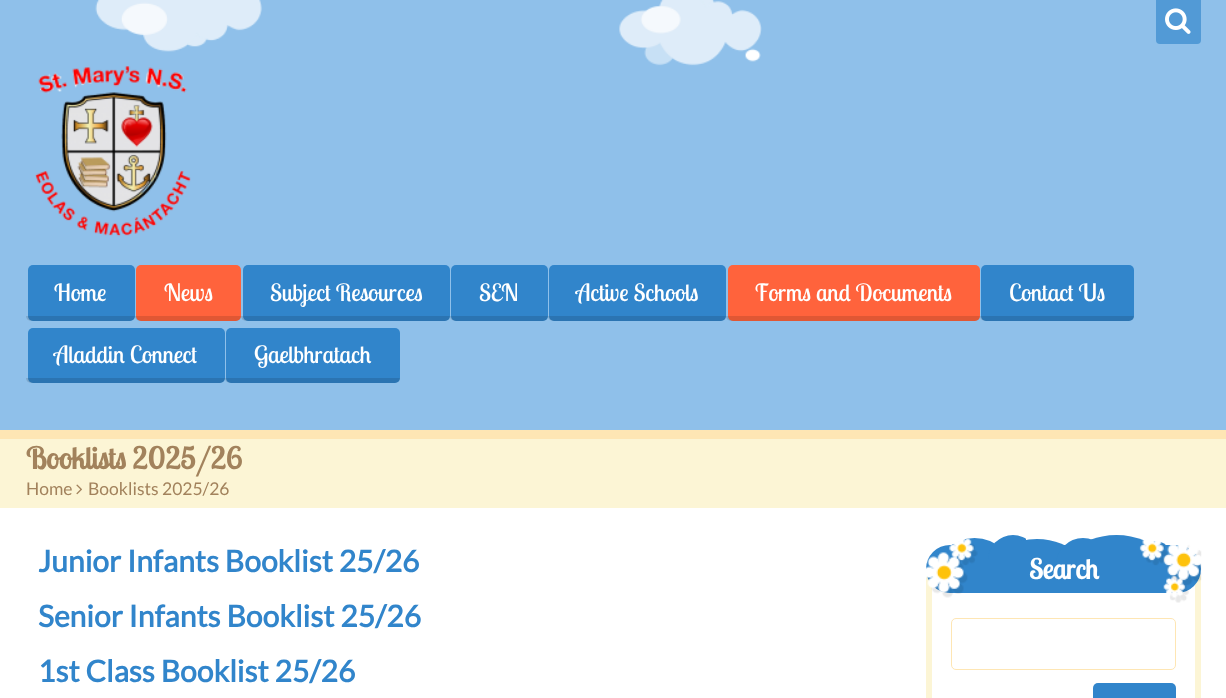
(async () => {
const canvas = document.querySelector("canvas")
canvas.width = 1226
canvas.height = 698
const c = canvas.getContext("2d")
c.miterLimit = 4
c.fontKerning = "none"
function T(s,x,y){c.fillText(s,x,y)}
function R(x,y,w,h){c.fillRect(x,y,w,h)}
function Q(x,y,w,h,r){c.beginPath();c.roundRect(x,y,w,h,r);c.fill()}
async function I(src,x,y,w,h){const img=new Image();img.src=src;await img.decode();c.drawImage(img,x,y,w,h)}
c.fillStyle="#fff"
R(0,0,1226,698)
c.fillStyle="#8fc0ea"
R(0,0,1226,430)
await I("1.png",95,0,667,66)
c.fillStyle="#529ad6"
c.beginPath()
c.roundRect(1156,0,45,44,[0,0,4,4])
c.fill()
await I("2.png",1165,8,26,26)
await I("3.png",35,66,156,171)
c.fillStyle="#3185cb"
Q(28,265,107,56,5)
c.font="23.75px Lobster Two"
c.fillStyle="#fff"
T("Home",54,301)
c.fillStyle="#0000001f"
c.beginPath()
c.roundRect(26,316,109,5,[0,0,5,5])
c.fill()
c.fillStyle="#ff633c"
Q(136,265,105,56,5)
c.fillStyle="#fff"
T("News",164,301)
c.fillStyle="#0000001f"
c.beginPath()
c.roundRect(135,316,106,5,[0,0,5,5])
c.fill()
c.fillStyle="#3185cb"
Q(243,265,207,56,5)
c.fillStyle="#fff"
T("Subject Resources",270,301)
c.fillStyle="#0000001f"
c.beginPath()
c.roundRect(241,316,209,5,[0,0,5,5])
c.fill()
c.fillStyle="#3185cb"
Q(451,265,97,56,5)
c.fillStyle="#fff"
T("SEN",479,301)
c.fillStyle="#0000001f"
c.beginPath()
c.roundRect(450,316,98,5,[0,0,5,5])
c.fill()
c.fillStyle="#3185cb"
Q(549,265,177,56,5)
c.fillStyle="#fff"
T("Active Schools",576,301)
c.fillStyle="#0000001f"
c.beginPath()
c.roundRect(548,316,178,5,[0,0,5,5])
c.fill()
c.fillStyle="#ff633c"
Q(728,265,252,56,5)
c.fillStyle="#fff"
T("Forms and Documents",755,301)
c.fillStyle="#0000001f"
c.beginPath()
c.roundRect(726,316,254,5,[0,0,5,5])
c.fill()
c.fillStyle="#3185cb"
Q(981,265,153,56,5)
c.fillStyle="#fff"
T("Contact Us",1009,301)
c.fillStyle="#0000001f"
c.beginPath()
c.roundRect(980,316,154,5,[0,0,5,5])
c.fill()
c.fillStyle="#3185cb"
Q(28,328,197,55,5)
c.fillStyle="#fff"
T("Aladdin Connect",54,363)
c.fillStyle="#0000001f"
c.beginPath()
c.roundRect(26,378,199,5,[0,0,5,5])
c.fill()
c.fillStyle="#3185cb"
Q(226,328,174,55,5)
c.fillStyle="#fff"
T("Gaelbhratach",254,363)
c.fillStyle="#0000001f"
c.beginPath()
c.roundRect(225,378,175,5,[0,0,5,5])
c.fill()
c.fillStyle="#fcf5d5"
R(0,439,1226,69)
c.fillStyle="#fee6b4"
R(0,430,1226,9)
c.font="bold 30px Lobster Two"
c.fillStyle="#a2825c"
T("Booklists 2025/26",26,469)
c.font="17.5px Lato"
T("Home",26,495)
await I("4.png",76,484,6,11)
T("Booklists 2025/26",88,495)
c.font="bold 30px Lato"
c.fillStyle="#3185cb"
T("Junior Infants Booklist 25/26",38,572)
T("Senior Infants Booklist 25/26",38,627)
T("1st Class Booklist 25/26",38,682)
c.beginPath()
c.roundRect(929,571,269,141,8)
c.strokeStyle="#fcf5d5"
c.lineWidth=6
c.stroke()
Q(926,545,275,48,24)
c.beginPath()
c.roundRect(951.5,618.5,224,51,4.5)
c.strokeStyle="#fee6b4"
c.lineWidth=1
c.stroke()
c.save()
c.beginPath()
c.rect(946,535,80,48)
c.clip()
Q(934,538,81,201,40.5)
Q(988,535,50,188,25)
c.restore()
Q(1093,683,83,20,5)
c.save()
c.beginPath()
c.rect(1021,535,82,48)
c.clip()
Q(973,539,128,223,64)
Q(1056,538,54,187,27)
c.restore()
c.save()
c.beginPath()
c.rect(1091,535,80,48)
c.clip()
Q(1043,535,147,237,73.5)
c.restore()
c.beginPath()
c.roundRect(1140,541,31,42,[15.5,15.5,0,0])
c.fill()
await I("5.png",926,538,52,60)
await I("6.png",1139,540,63,63)
c.font="bold 27.5px Lobster Two"
c.fillStyle="#fff"
T("Search",1029,579)
})()
